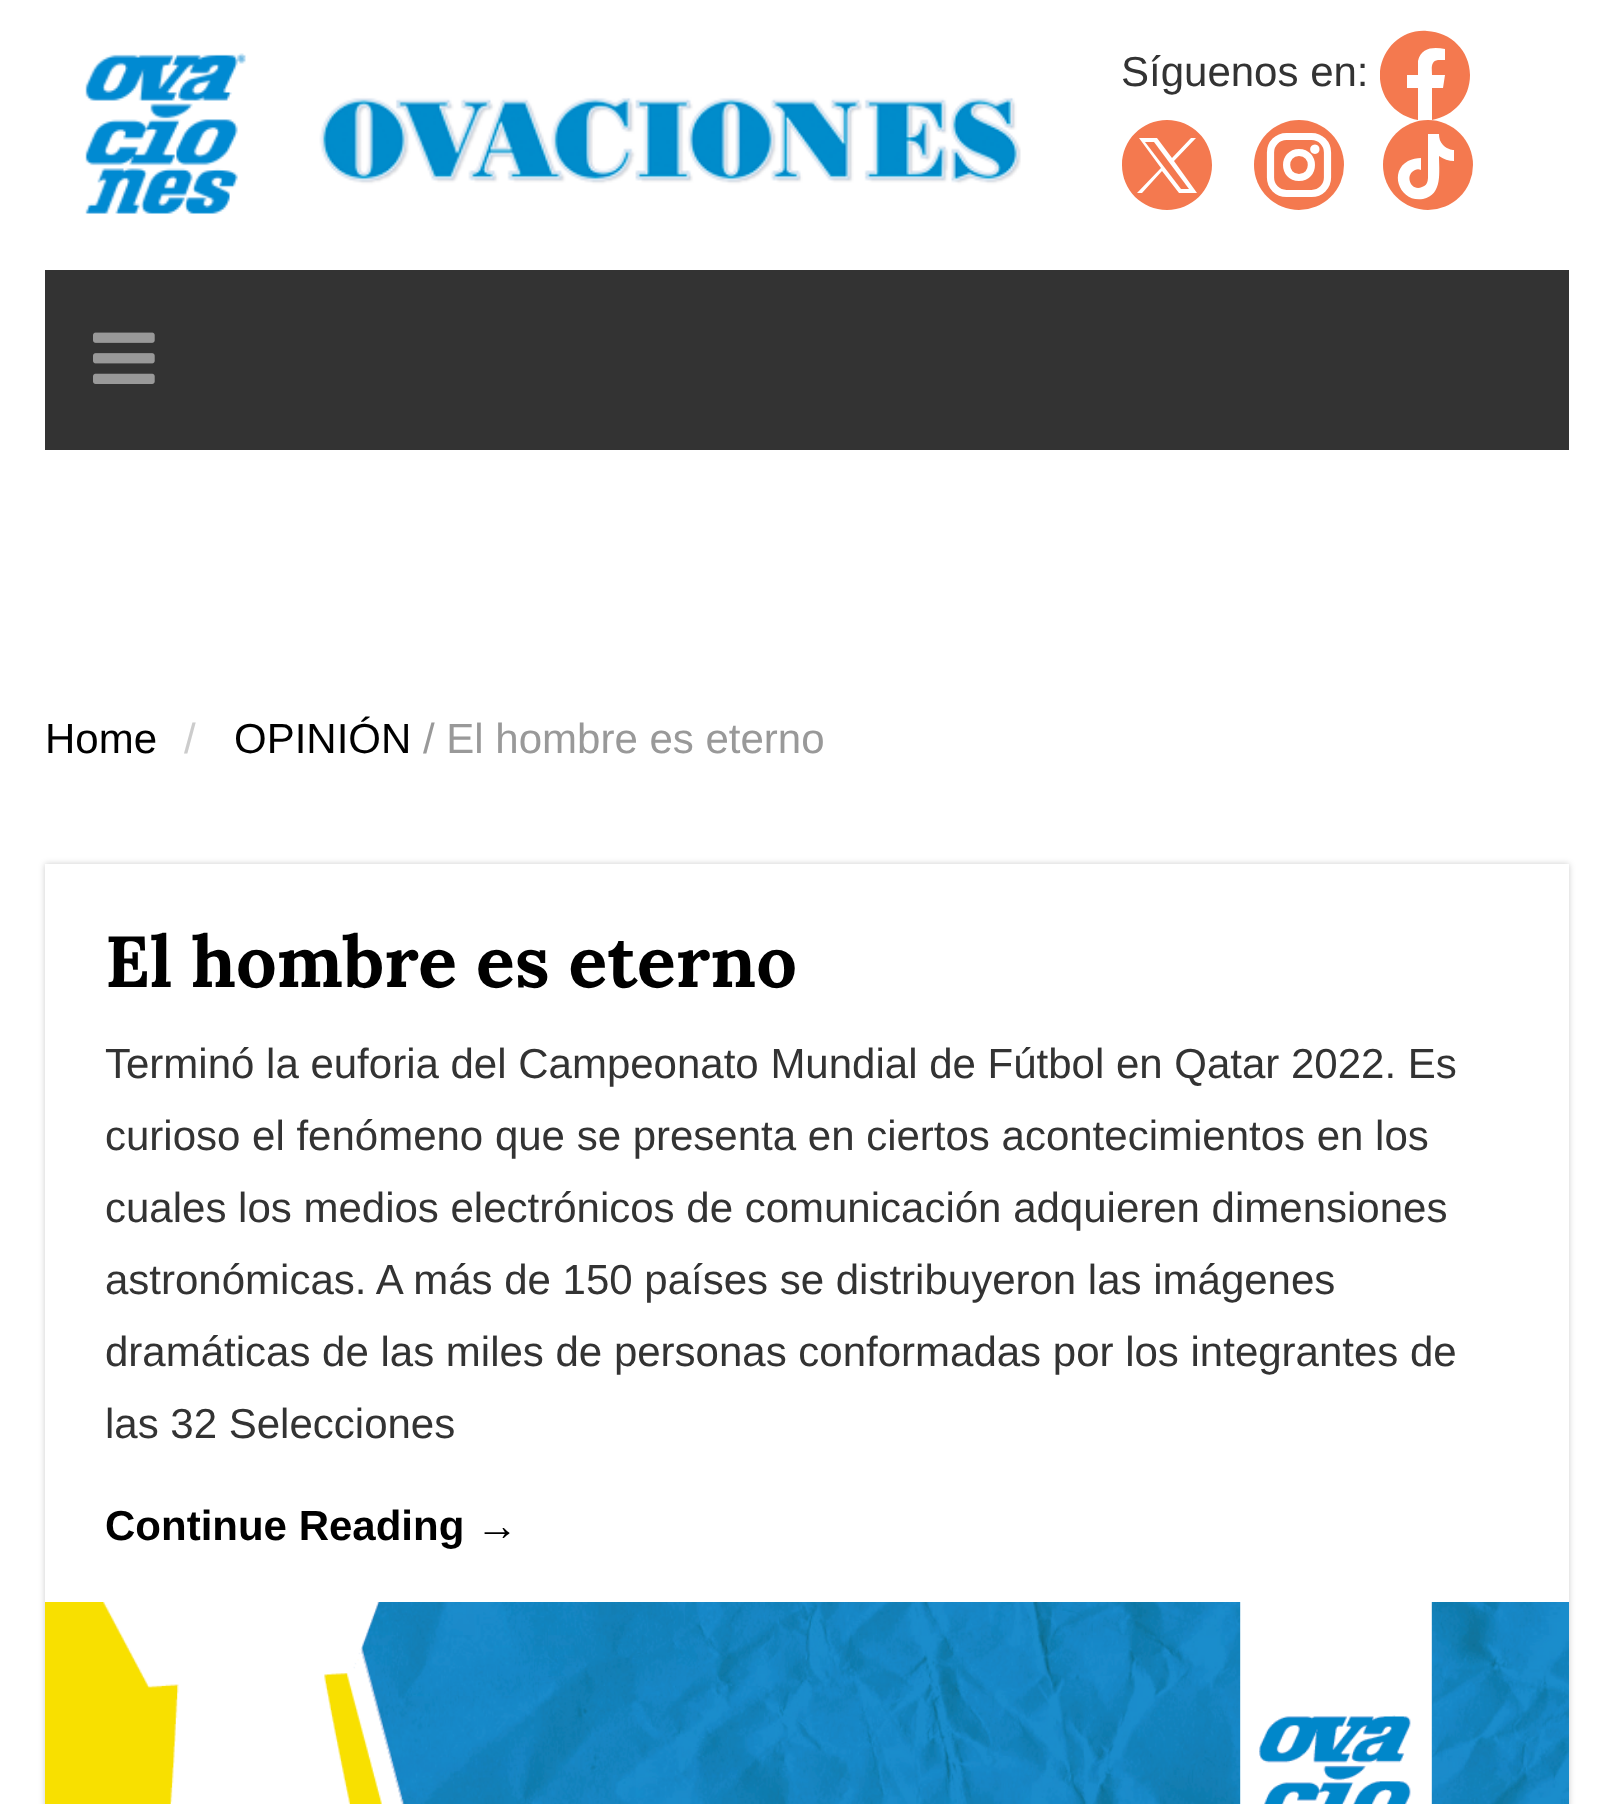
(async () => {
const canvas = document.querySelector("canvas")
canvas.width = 1612
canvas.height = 1804
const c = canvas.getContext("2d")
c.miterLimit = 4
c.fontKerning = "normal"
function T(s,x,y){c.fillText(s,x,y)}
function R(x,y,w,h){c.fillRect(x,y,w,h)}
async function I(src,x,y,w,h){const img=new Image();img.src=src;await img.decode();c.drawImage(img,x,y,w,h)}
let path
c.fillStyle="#fff"
R(0,0,1612,1804)
await I("1.png",85,53,936,161)
c.font="42px Liberation Sans"
c.fillStyle="#333"
T("Síguenos en:",1121,86)
c.save()
c.beginPath()
c.rect(1380,30,90,90)
c.clip()
c.fillStyle="#f4794f"
path = new Path2D("M1470 75c0-24-19-43-43-44c-24-2-44 16-47 40c-2 24 14 45 38 49v-32h-11v-13h11v-14c3-14 16-14 27-12v11h-7c-8 1-6 10-6 15h13l-2 13h-11v32c22-4 38-22 38-45z")
c.fill(path)
c.restore()
c.fillStyle="#f4794f"
path = new Path2D("M1154 142l35 47h-8l-36-47z")
c.fill(path)
path = new Path2D("M1167 120c-25 0-45 20-45 45c0 25 20 45 45 45c25 0 45-20 45-45c0-25-20-45-45-45zm12 73l-17-22l-20 22h-5l24-25l-22-30h18l15 20l19-20h5l-22 23l23 32z")
c.fill(path)
c.beginPath()
c.arc(1299,165,45,0,7)
c.fill()
c.fillStyle="#fff"
path = new Path2D("M1315 154c6 0 6-9.5 0-9.5c-6.5 0-6.5 9.5 0 9.5z")
c.fill(path)
path = new Path2D("M1311.5 136.5c9 0 16 7 16 16v25c0 9-7 16-16 16h-25c-9 0-16-7-16-16v-25c0-9 7-16 16-16z")
c.strokeStyle="#fff"
c.lineWidth=7.2
c.lineCap="round"
c.lineJoin="round"
c.stroke(path)
path = new Path2D("M1299 152.5c16.5 0 16.5 25 0 25c-16.5 0-16.5-25 0-25z")
c.stroke(path)
c.fillStyle="#f4794f"
c.beginPath()
c.arc(1428,165,45,0,7)
c.fill()
c.fillStyle="#fff"
path = new Path2D("M1443 145c-3-3-4-7-4-11h-11v38c0 6 1 13-6 15c-11 5-18-12-7-17c2-1 4-1 6 0v-12c-4 0-9 1-13 3c-20 11-8 42 15 38c20-4 16-28 16-43c4 3 10 5 15 5v-11c0 0-6 0-11-5z")
c.fill(path)
c.fillStyle="#333"
R(45,270,1524,180)
await I("2.png",93,332,62,52)
c.fillStyle="#000"
T("Home",45,753)
c.fillStyle="#ccc"
T("/",184,753)
c.fillStyle="#000"
T("OPINIÓN",234,753)
c.fillStyle="#999"
T("/ El hombre es eterno",423,753)
c.save()
path = new Path2D("M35 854h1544v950h-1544zm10 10h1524v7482h-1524z")
c.clip(path,"evenodd")
c.fillStyle="#00000033"
c.filter="blur(3px)"
c.beginPath()
c.rect(45,864,1524,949)
c.fill()
c.filter="none"
c.restore()
c.font="bold 72px Lora"
c.fillStyle="#000"
T("El hombre es eterno",105,987)
c.font="42px Liberation Sans"
c.fillStyle="#333"
T("Terminó la euforia del Campeonato Mundial de Fútbol en Qatar 2022. Es",105,1078)
T("curioso el fenómeno que se presenta en ciertos acontecimientos en los",105,1150)
T("cuales los medios electrónicos de comunicación adquieren dimensiones",105,1222)
T("astronómicas. A más de 150 países se distribuyeron las imágenes",105,1294)
T("dramáticas de las miles de personas conformadas por los integrantes de",105,1366)
T("las 32 Selecciones",105,1438)
c.font="bold 42px Liberation Sans"
c.fillStyle="#000"
T("Continue Reading →",105,1540)
await I("3.png",45,1602,1524,202)
})()
